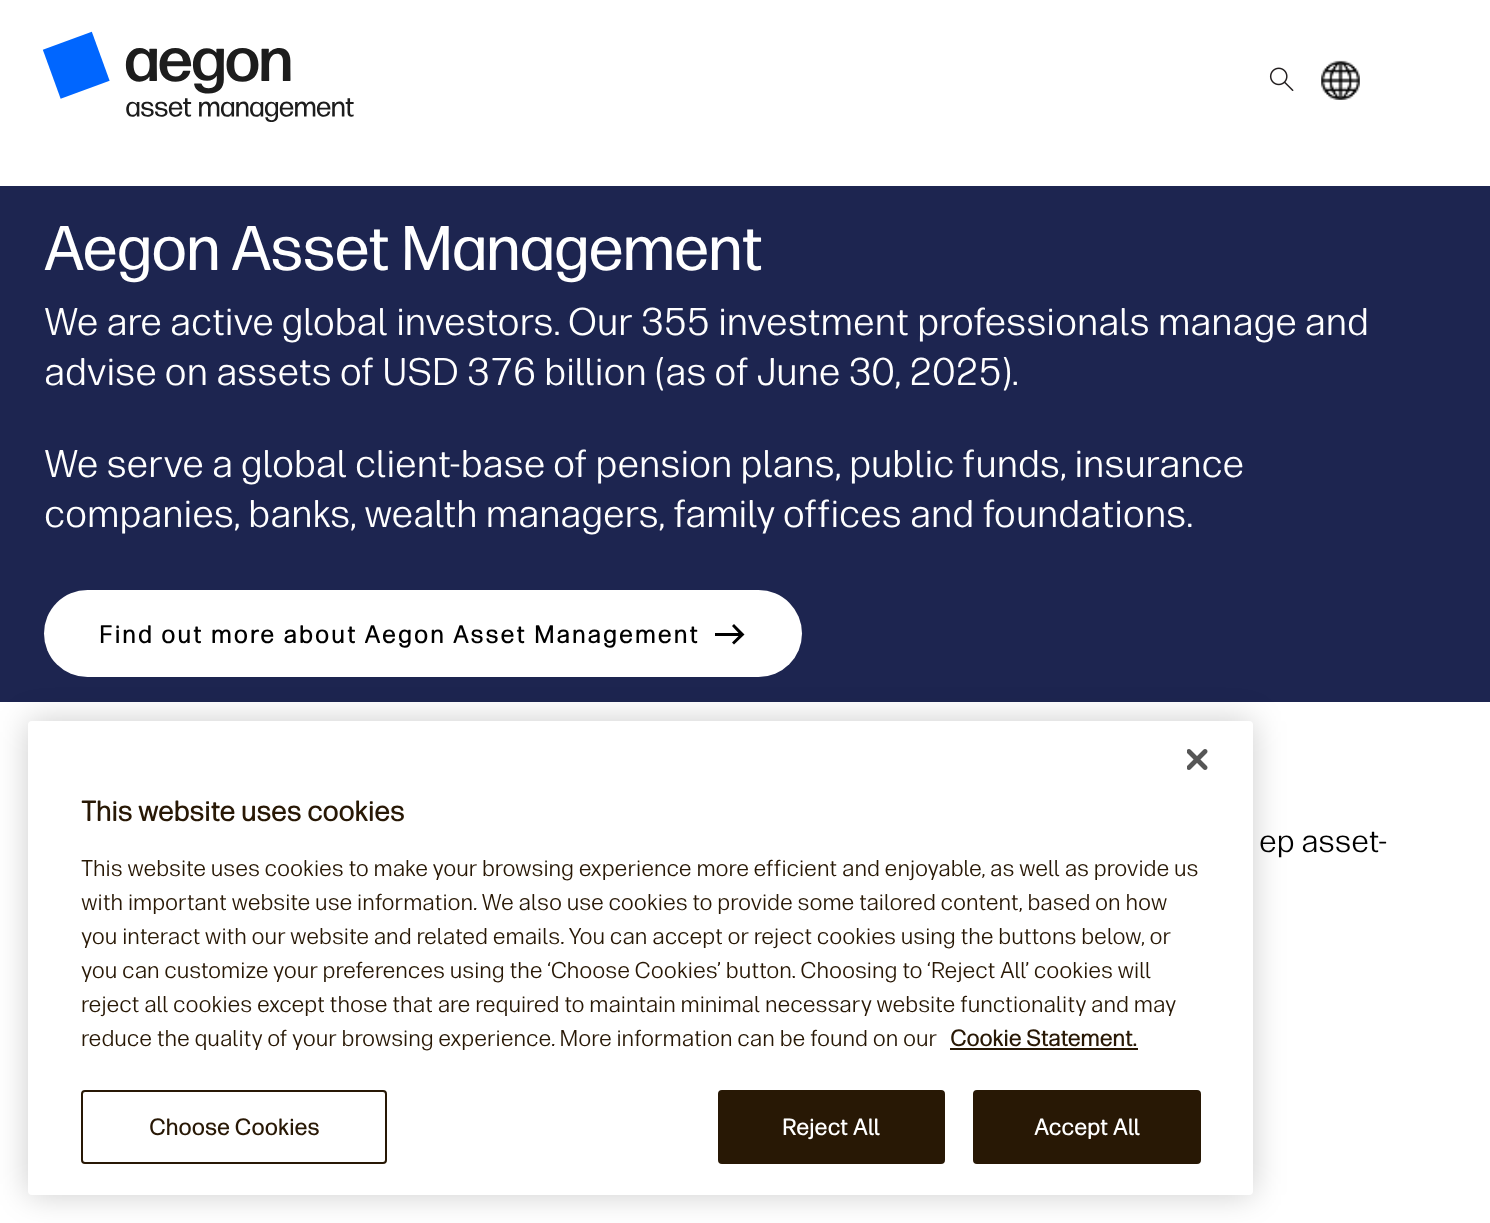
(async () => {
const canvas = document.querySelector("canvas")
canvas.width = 1490
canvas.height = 1223
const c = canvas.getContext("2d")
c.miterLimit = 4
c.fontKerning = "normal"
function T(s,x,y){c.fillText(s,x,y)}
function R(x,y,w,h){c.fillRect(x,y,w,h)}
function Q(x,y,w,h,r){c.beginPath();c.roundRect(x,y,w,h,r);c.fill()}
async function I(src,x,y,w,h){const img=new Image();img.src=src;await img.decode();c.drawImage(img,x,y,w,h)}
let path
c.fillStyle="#fff"
R(0,0,1490,1223)
await I("1.png",42,31,312,91)
await I("2.png",1269,67,25,24)
await I("3.png",1321,60,39,40)
c.fillStyle="#1d2550"
R(0,186,1490,516)
c.font="63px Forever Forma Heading"
c.fillStyle="#fff"
T("Aegon Asset Management",44,270)
c.font="38.5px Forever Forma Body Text"
T("We are active global investors. Our 355 investment professionals manage and",44,335)
T("advise on assets of USD 376 billion (as of June 30, 2025).",44,385)
T("We serve a global client-base of pension plans, public funds, insurance",44,477)
T("companies, banks, wealth managers, family offices and foundations.",44,527)
Q(44,590,758,87,43.5)
c.letterSpacing="2.15px"
c.font="bold 24.5px Forever Forma Body Text"
c.fillStyle="#000"
T("Find out more about Aegon Asset Management",99,643)
path = new Path2D("M734 624l-2 2l6.5 7h-23.5v3h23.5l-6.5 6.5l2 2l10.5-10z")
c.fill(path)
c.letterSpacing="0px"
c.font="31.5px Forever Forma Body Text"
T("ep asset-",1259,852)
c.fillStyle="#00000033"
c.filter="blur(16px)"
c.beginPath()
c.roundRect(28,721,1225,474,4)
c.fill()
c.filter="none"
c.fillStyle="#fff"
Q(28,721,1225,474,4)
await I("4.png",1187,749,21,21)
c.font="bold 28px Forever Forma Body Text"
c.fillStyle="#281805"
T("This website uses cookies",81,821)
c.font="22.75px Forever Forma Body Text"
T("This website uses cookies to make your browsing experience more efficient and enjoyable, as well as provide us",81,876)
T("with important website use information. We also use cookies to provide some tailored content, based on how",81,910)
T("you interact with our website and related emails. You can accept or reject cookies using the buttons below, or",81,944)
T("you can customize your preferences using the ‘Choose Cookies’ button. Choosing to ‘Reject All’ cookies will",81,978)
T("reject all cookies except those that are required to maintain minimal necessary website functionality and may",81,1012)
T("reduce the quality of your browsing experience. More information can be found on our",81,1046)
c.font="bold 22.75px Forever Forma Body Text"
T("Cookie Statement.",950,1046)
R(950,1048,188,2)
c.beginPath()
c.roundRect(82,1091,304,72,3)
c.strokeStyle="#281805"
c.lineWidth=2
c.stroke()
c.letterSpacing="0.25px"
T("Choose Cookies",149,1135)
c.beginPath()
c.roundRect(719,1091,225,72,3)
c.fill()
c.stroke()
c.fillStyle="#fff"
T("Reject All",782,1135)
c.fillStyle="#281805"
c.beginPath()
c.roundRect(974,1091,226,72,3)
c.fill()
c.stroke()
c.fillStyle="#fff"
T("Accept All",1034,1135)
})()
